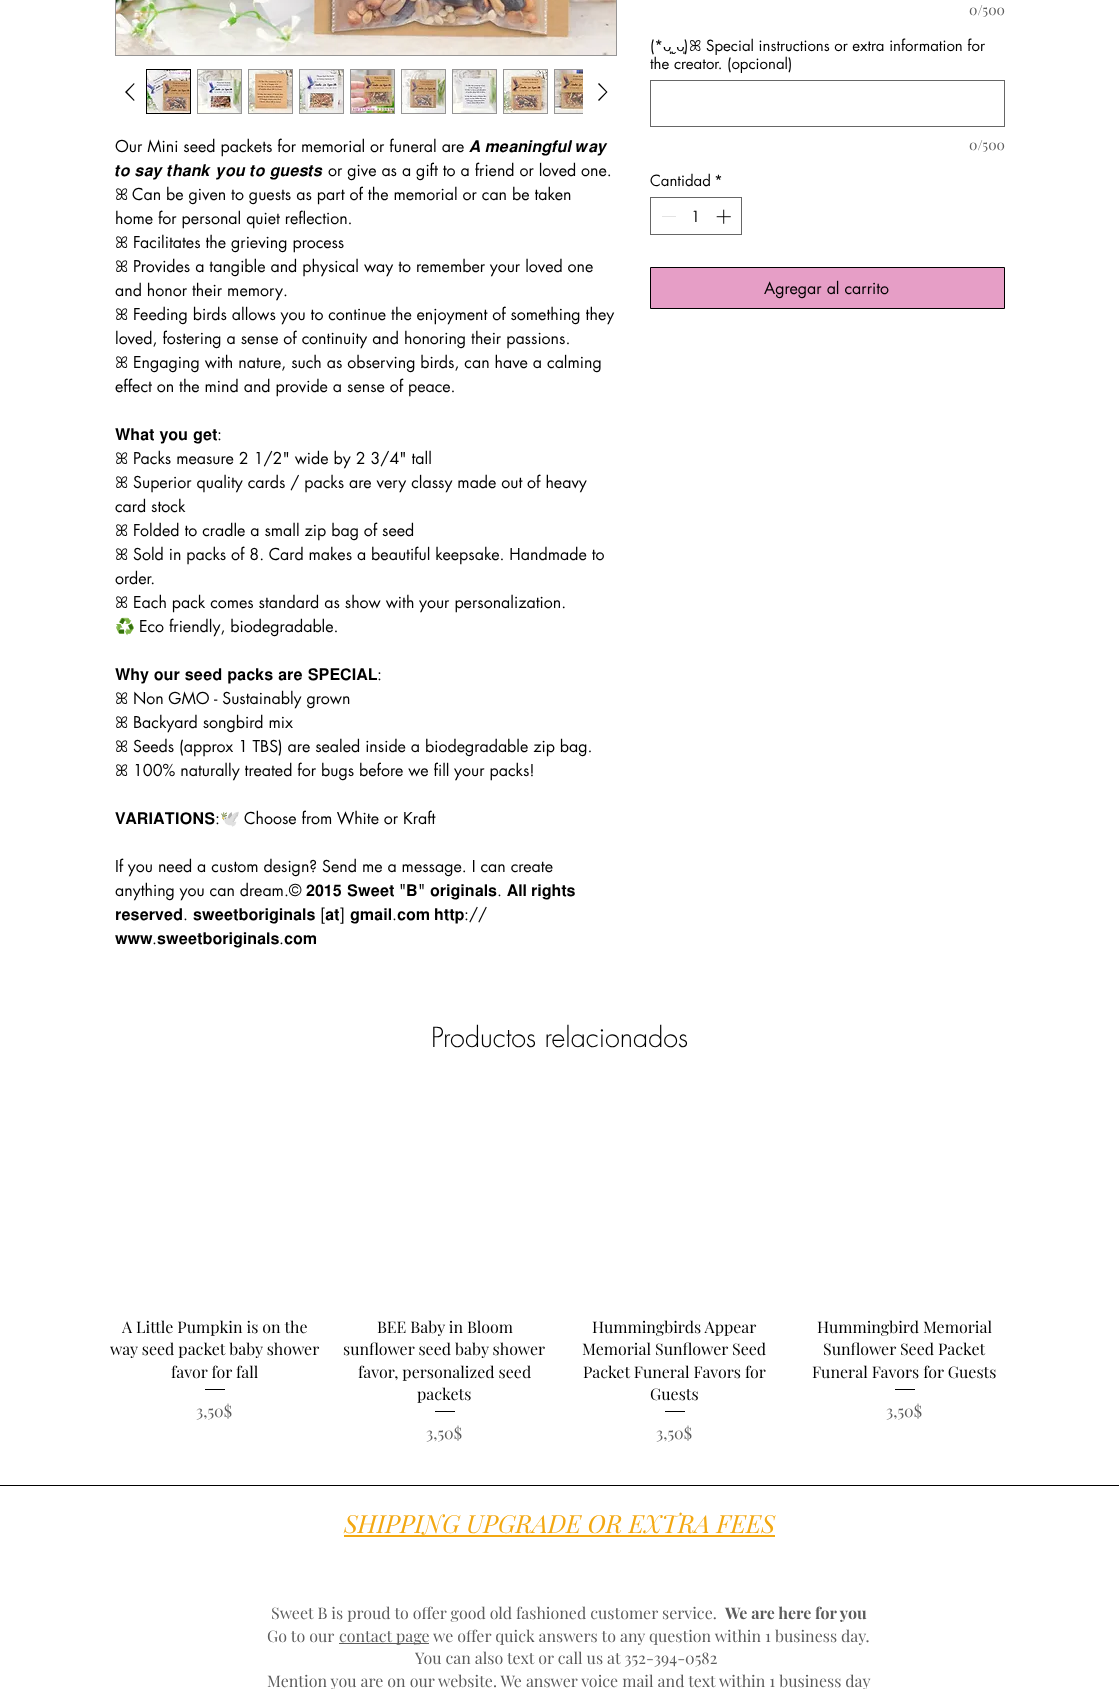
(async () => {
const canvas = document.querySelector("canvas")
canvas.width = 1119
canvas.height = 1689
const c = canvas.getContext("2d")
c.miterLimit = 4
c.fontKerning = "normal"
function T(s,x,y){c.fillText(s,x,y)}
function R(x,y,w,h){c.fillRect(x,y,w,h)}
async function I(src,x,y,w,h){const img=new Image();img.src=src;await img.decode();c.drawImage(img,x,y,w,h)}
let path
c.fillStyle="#fff"
R(0,0,1119,1689)
c.strokeStyle="#969595"
c.strokeRect(115.5,-.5,501,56)
await I("1.png",116,0,500,55)
c.fillStyle="#000"
path = new Path2D("M134 83l.5 1l-7.5 8l7.5 8l-.5 1l-9-9z")
c.fill(path,"evenodd")
c.strokeStyle="#000"
c.strokeRect(146.5,69.5,44,44)
await I("2.png",147,70,43,43)
c.fillStyle="#969595"
R(197,69,45,45)
await I("3.png",198,70,43,43)
R(248,69,45,45)
await I("4.png",249,70,43,43)
R(299,69,45,45)
await I("5.png",300,70,43,43)
R(350,69,45,45)
await I("6.png",351,70,43,43)
R(401,69,45,45)
await I("7.png",402,70,43,43)
R(452,69,45,45)
await I("8.png",453,70,43,43)
R(503,69,45,45)
await I("9.png",504,70,43,43)
R(554,69,29,45)
await I("10.png",555,70,28,43)
c.fillStyle="#000"
path = new Path2D("M599 83l8.5 9l-8.5 9l-1-1l8-8l-8-8z")
c.fill(path,"evenodd")
c.font="16px futura"
T("Our Mini seed packets for memorial or funeral are",115,152)
c.font="16px FreeSans"
T("𝑨",469,152)
T("𝒎𝒆𝒂𝒏𝒊𝒏𝒈𝒇𝒖𝒍",485,152)
T("𝒘𝒂𝒚",576,152)
T("𝒕𝒐",115,176)
T("𝒔𝒂𝒚",135,176)
T("𝒕𝒉𝒂𝒏𝒌",167,176)
T("𝒚𝒐𝒖",216,176)
T("𝒕𝒐",250,176)
T("𝒈𝒖𝒆𝒔𝒕𝒔",270,176)
c.font="16px futura"
T("or give as a gift to a friend or loved one.",328,176)
c.font="16px FreeSans"
T("ꕤ",115,200)
c.font="16px futura"
T("Can be given to guests as part of the memorial or can be taken",132,200)
T("home for personal quiet reflection.",115,224)
c.font="16px FreeSans"
T("ꕤ",115,248)
c.font="16px futura"
T("Facilitates the grieving process",133,248)
c.font="16px FreeSans"
T("ꕤ",115,272)
c.font="16px futura"
T("Provides a tangible and physical way to remember your loved one",133,272)
T("and honor their memory.",115,296)
c.font="16px FreeSans"
T("ꕤ",115,320)
c.font="16px futura"
T("Feeding birds allows you to continue the enjoyment of something they",133,320)
T("loved, fostering a sense of continuity and honoring their passions.",115,344)
c.font="16px FreeSans"
T("ꕤ",115,368)
c.font="16px futura"
T("Engaging with nature, such as observing birds, can have a calming",133,368)
T("effect on the mind and provide a sense of peace.",115,392)
c.wordSpacing="1px"
c.font="16px FreeSans"
T("𝐖𝐡𝐚𝐭 𝐲𝐨𝐮 𝐠𝐞𝐭",115,440)
c.wordSpacing="0px"
c.font="16px futura"
T(":",217,440)
c.font="16px FreeSans"
T("ꕤ",115,464)
c.font="16px futura"
T("Packs measure 2 1/2\" wide by 2 3/4\" tall",133,464)
c.font="16px FreeSans"
T("ꕤ",115,488)
c.font="16px futura"
T("Superior quality cards / packs are very classy made out of heavy",133,488)
T("card stock",115,512)
c.font="16px FreeSans"
T("ꕤ",115,536)
c.font="16px futura"
T("Folded to cradle a small zip bag of seed",133,536)
c.font="16px FreeSans"
T("ꕤ",115,560)
c.font="16px futura"
T("Sold in packs of 8. Card makes a beautiful keepsake. Handmade to",133,560)
T("order.",115,584)
c.font="16px FreeSans"
T("ꕤ",115,608)
c.font="16px futura"
T("Each pack comes standard as show with your personalization.",133,608)
c.save()
c.beginPath()
c.rect(115,134,500,816)
c.clip()
c.font="16px Noto Color Emoji"
T("♻️",115,632)
c.restore()
T("Eco friendly, biodegradable.",139,632)
c.wordSpacing="1px"
c.font="16px FreeSans"
T("𝐖𝐡𝐲 𝐨𝐮𝐫 𝐬𝐞𝐞𝐝 𝐩𝐚𝐜𝐤𝐬 𝐚𝐫𝐞 𝐒𝐏𝐄𝐂𝐈𝐀𝐋",115,680)
c.wordSpacing="0px"
c.font="16px futura"
T(":",377,680)
c.font="16px FreeSans"
T("ꕤ",115,704)
c.font="16px futura"
T("Non GMO - Sustainably grown",133,704)
c.font="16px FreeSans"
T("ꕤ",115,728)
c.font="16px futura"
T("Backyard songbird mix",133,728)
c.font="16px FreeSans"
T("ꕤ",115,752)
c.font="16px futura"
T("Seeds (approx 1 TBS) are sealed inside a biodegradable zip bag.",133,752)
c.font="16px FreeSans"
T("ꕤ",115,776)
c.font="16px futura"
T("100% naturally treated for bugs before we fill your packs!",133,776)
c.font="16px FreeSans"
T("𝐕𝐀𝐑𝐈𝐀𝐓𝐈𝐎𝐍𝐒",115,824)
c.font="16px futura"
T(":",215,824)
c.font="16px Noto Color Emoji"
T("🕊️",220,824)
c.font="16px futura"
T("Choose from White or Kraft",244,824)
T("If you need a custom design? Send me a message. I can create",115,872)
T("anything you can dream.©",115,896)
c.font="16px FreeSans"
T("𝟐𝟎𝟏𝟓",306,896)
T("𝐒𝐰𝐞𝐞𝐭",347,896)
c.font="16px futura"
T("\"",399,896)
c.font="16px FreeSans"
T("𝐁",406,896)
c.font="16px futura"
T("\"",418,896)
c.font="16px FreeSans"
T("𝐨𝐫𝐢𝐠𝐢𝐧𝐚𝐥𝐬",430,896)
c.font="16px futura"
T(".",497,896)
c.font="16px FreeSans"
T("𝐀𝐥𝐥",507,896)
T("𝐫𝐢𝐠𝐡𝐭𝐬",531,896)
T("𝐫𝐞𝐬𝐞𝐫𝐯𝐞𝐝",115,920)
c.font="16px futura"
T(".",183,920)
c.font="16px FreeSans"
T("𝐬𝐰𝐞𝐞𝐭𝐛𝐨𝐫𝐢𝐠𝐢𝐧𝐚𝐥𝐬",193,920)
c.font="16px futura"
T("[",320,920)
c.font="16px FreeSans"
T("𝐚𝐭",325,920)
c.font="16px futura"
T("]",340,920)
c.font="16px FreeSans"
T("𝐠𝐦𝐚𝐢𝐥",350,920)
c.font="16px futura"
T(".",392,920)
c.font="16px FreeSans"
T("𝐜𝐨𝐦 𝐡𝐭𝐭𝐩",397,920)
c.font="16px futura"
T("://",464,920)
c.font="16px FreeSans"
T("𝐰𝐰𝐰",115,944)
c.font="16px futura"
T(".",152,944)
c.font="16px FreeSans"
T("𝐬𝐰𝐞𝐞𝐭𝐛𝐨𝐫𝐢𝐠𝐢𝐧𝐚𝐥𝐬",157,944)
c.font="16px futura"
T(".",279,944)
c.font="16px FreeSans"
T("𝐜𝐨𝐦",284,944)
c.font="14px Playfair Display"
c.fillStyle="#5c5c5c"
T("0/500",969,15)
c.font="15px futura"
c.fillStyle="#000"
T("(*",650,51)
c.font="15px Liberation Sans"
T("ᴗ͈ˬᴗ͈",663,51)
c.font="15px futura"
T(")",684,51)
c.font="15px FreeSans"
T("ꕤ",689,51)
c.font="15px futura"
T("Special instructions or extra information for",706,51)
T("the creator. (opcional)",650,69)
c.strokeStyle="#666"
c.strokeRect(650.5,80.5,354,46)
c.font="14px Playfair Display"
c.fillStyle="#5c5c5c"
T("0/500",969,150)
c.font="15px futura"
c.fillStyle="#000"
T("Cantidad",650,186)
T("*",714,186)
c.strokeRect(650.5,197.5,91,37)
c.fillStyle="#e3e3e3"
R(662,216,14,1)
c.fillStyle="#000"
T("1",691,222)
await I("11.png",716,209,15,15)
c.fillStyle="#e69ec6"
c.beginPath()
c.rect(650.5,267.5,354,41)
c.fill()
c.strokeStyle="#000"
c.stroke()
c.font="16px futura"
c.fillStyle="#000"
T("Agregar al carrito",764,294)
c.font="300 27px futura"
T("Productos relacionados",431,1047)
c.font="16px Playfair Display"
T("A Little Pumpkin is on the",122,1333)
T("way seed packet baby shower",110,1355)
T("favor for fall",171,1378)
R(205,1389,20,1)
c.fillStyle="#5c5c5c"
T("3,50$",196,1417)
c.fillStyle="#000"
T("BEE Baby in Bloom",377,1333)
T("sunflower seed baby shower",343,1355)
T("favor, personalized seed",358,1378)
T("packets",417,1400)
R(435,1411,20,1)
c.fillStyle="#5c5c5c"
T("3,50$",426,1439)
c.fillStyle="#000"
T("Hummingbirds Appear",592,1333)
T("Memorial Sunflower Seed",582,1355)
T("Packet Funeral Favors for",583,1378)
T("Guests",650,1400)
R(665,1411,20,1)
c.fillStyle="#5c5c5c"
T("3,50$",656,1439)
c.fillStyle="#000"
T("Hummingbird Memorial",817,1333)
T("Sunflower Seed Packet",823,1355)
T("Funeral Favors for Guests",812,1378)
R(895,1389,20,1)
c.fillStyle="#5c5c5c"
T("3,50$",886,1417)
c.fillStyle="#000"
R(0,1485,1119,1)
c.font="italic 25px Playfair Display"
c.fillStyle="#f3a812"
T("SHIPPING UPGRADE OR EXTRA FEES",344,1533)
R(344,1535,431,2)
c.font="16px Playfair Display"
c.fillStyle="#5c5c5c"
T("Sweet B is proud to offer good old fashioned customer service.",271,1619)
c.font="bold 16px Playfair Display"
T("We are here for you",725,1619)
c.font="16px Playfair Display"
T("Go to our",267,1642)
R(339,1643,90,1)
T("contact page we offer quick answers to any question within 1 business day.",339,1642)
T("You can also text or call us at 352-394-0582",415,1664)
T("Mention you are on our website. We answer voice mail and text within 1 business day",267,1687)
})()
